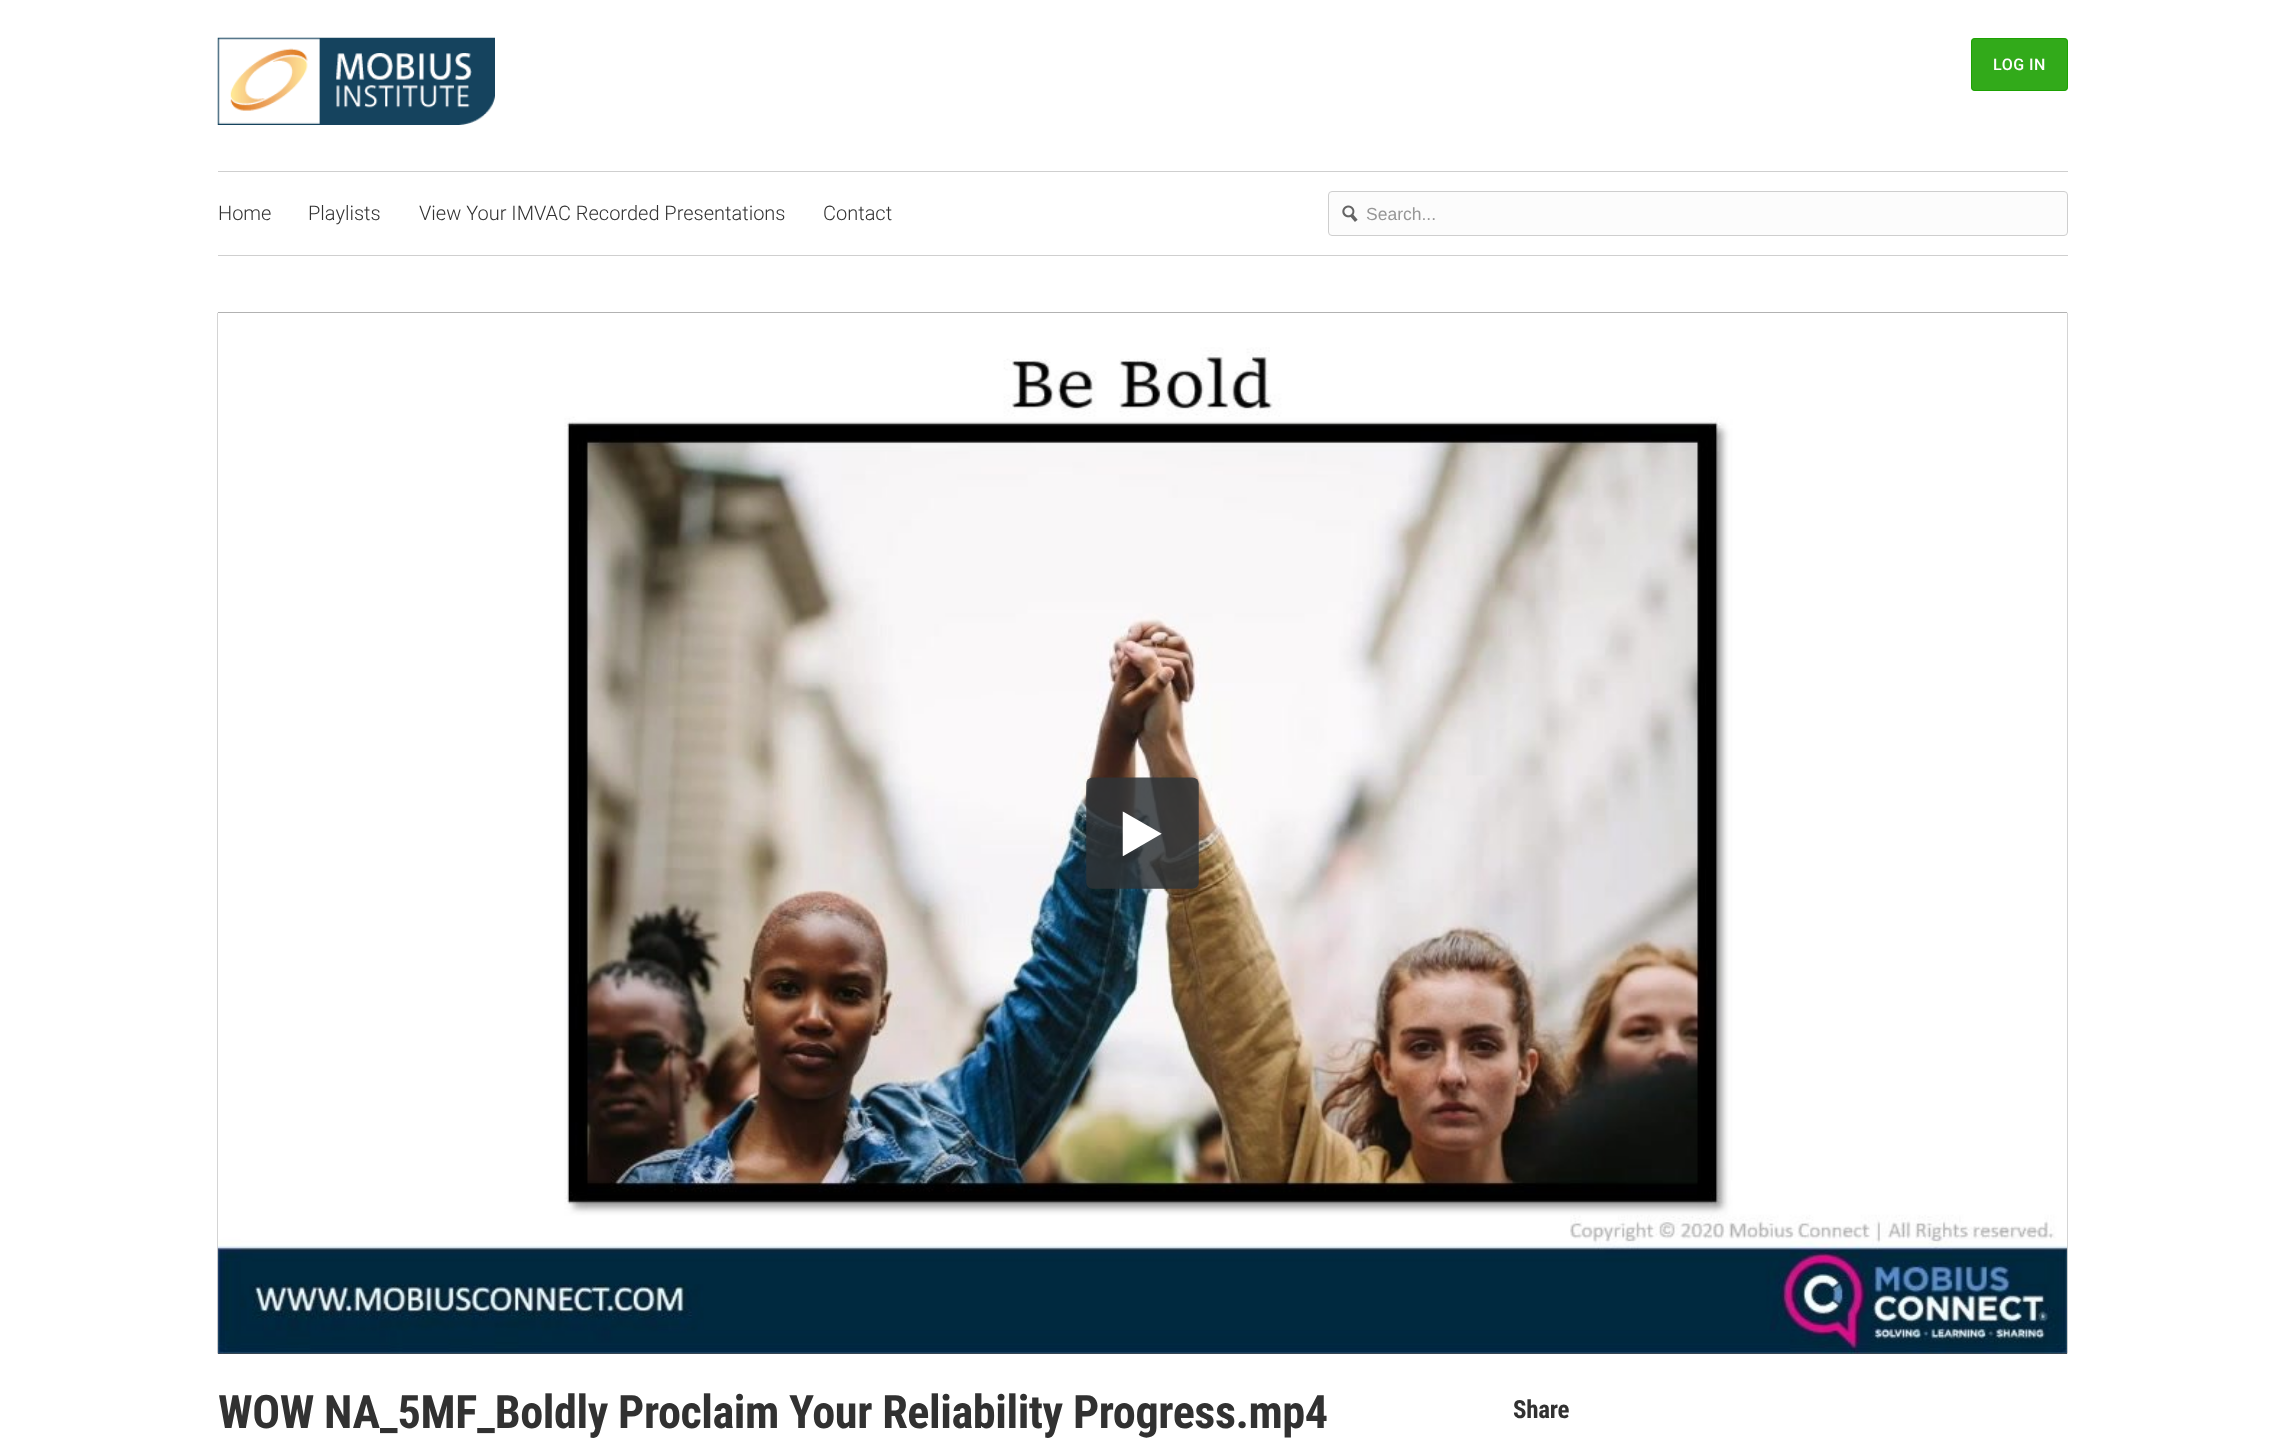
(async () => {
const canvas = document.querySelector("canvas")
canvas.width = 2284
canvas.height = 1454
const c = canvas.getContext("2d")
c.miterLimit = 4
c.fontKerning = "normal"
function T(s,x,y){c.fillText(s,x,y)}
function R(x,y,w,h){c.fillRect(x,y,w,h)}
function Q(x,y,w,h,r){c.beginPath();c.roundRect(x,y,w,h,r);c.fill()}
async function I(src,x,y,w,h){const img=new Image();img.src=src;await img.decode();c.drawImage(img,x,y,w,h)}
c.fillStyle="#fff"
R(0,0,2284,1454)
await I("1.png",217,37,278,88)
c.fillStyle="#32aa1a"
Q(1971,38,97,53,4)
c.beginPath()
c.roundRect(1971.5,38.5,96,52,3.5)
c.strokeStyle="#1ba100e6"
c.stroke()
c.letterSpacing="0.5px"
c.font="500 16px Roboto"
c.fillStyle="#fff"
T("LOG IN",1993,70)
c.fillStyle="#cfcfcf"
R(218,171,1850,1)
R(218,255,1850,1)
c.letterSpacing="0px"
c.font="300 20px Roboto"
c.fillStyle="#313131"
T("Home",218,220)
T("Playlists",308,220)
T("View Your IMVAC Recorded Presentations",419,220)
T("Contact",823,220)
c.fillStyle="#fcfcfc"
c.beginPath()
c.roundRect(1328.5,191.5,739,44,3.5)
c.fill()
c.strokeStyle="#cecece"
c.stroke()
await I("2.png",1342,205,16,17)
c.font="17.5px Liberation Sans"
c.fillStyle="#979797"
T("Search...",1366,220)
await I("3.png",217,312,1851,1042)
c.letterSpacing="-0.45px"
c.font="bold 46.25px Roboto Condensed"
c.fillStyle="#313131"
T("WOW NA_5MF_Boldly Proclaim Your Reliability Progress.mp4",218,1428)
c.letterSpacing="-0.25px"
c.font="bold 25px Roboto Condensed"
T("Share",1513,1418)
})()
